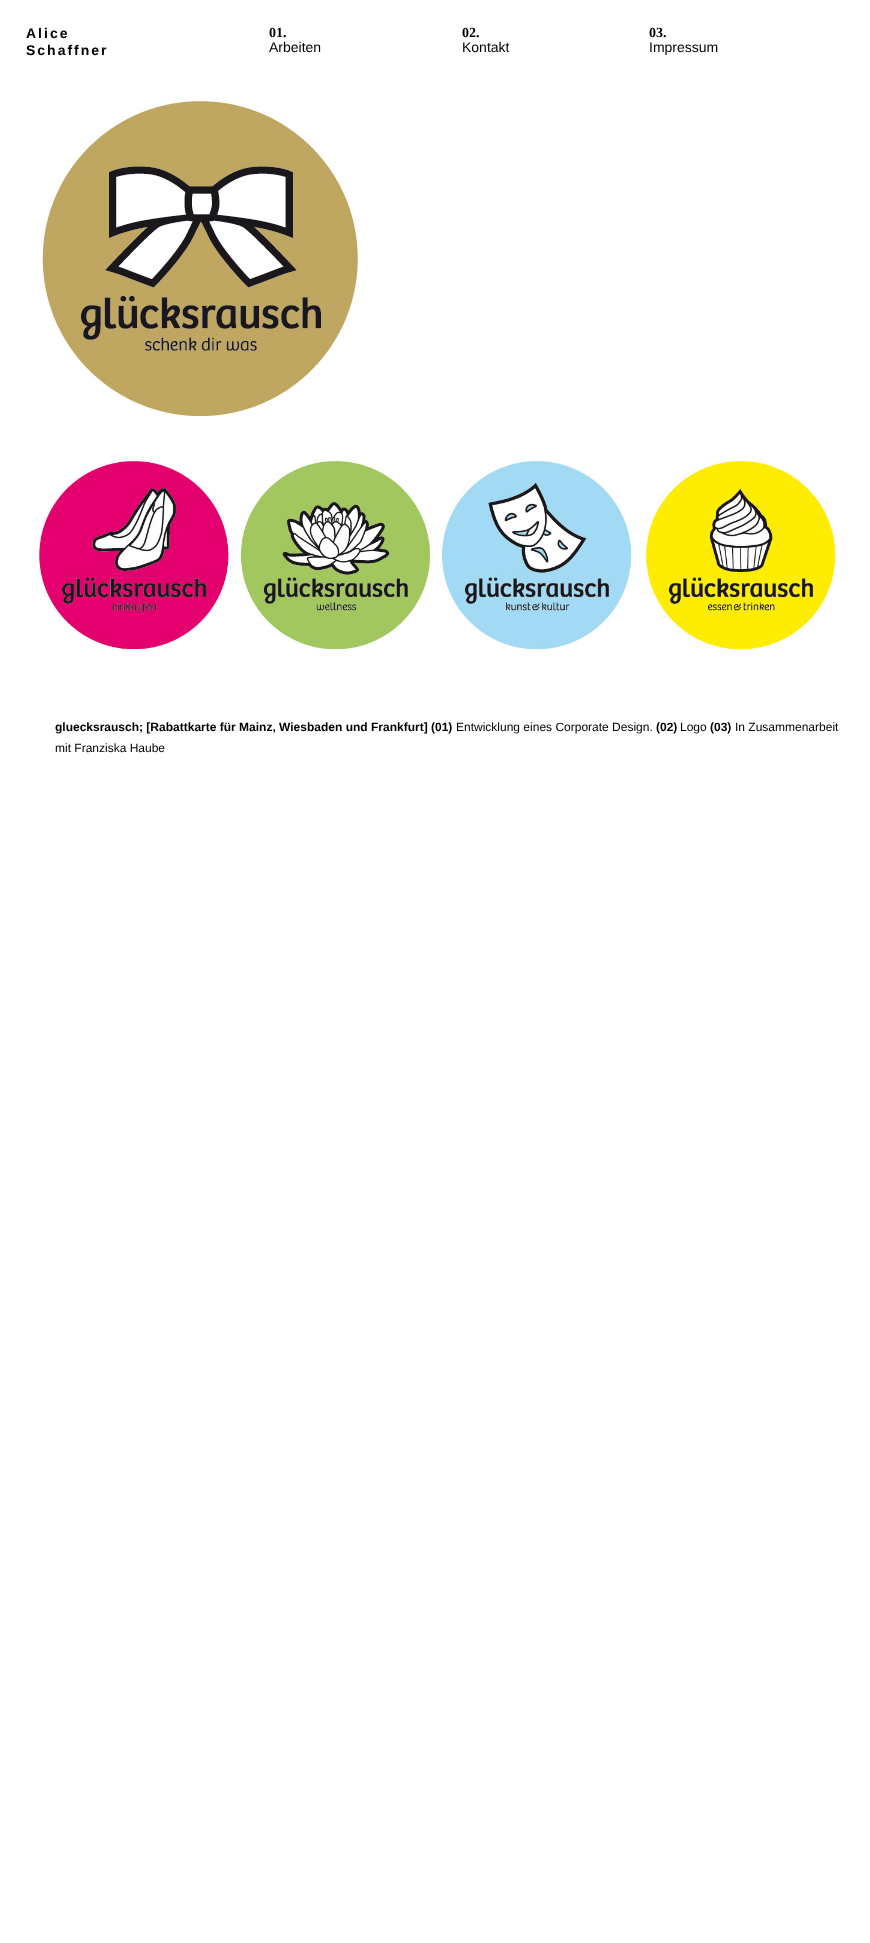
(async () => {
const canvas = document.querySelector("canvas")
canvas.width = 870
canvas.height = 1943
const c = canvas.getContext("2d")
c.miterLimit = 4
c.fontKerning = "normal"
function T(s,x,y){c.fillText(s,x,y)}
function R(x,y,w,h){c.fillRect(x,y,w,h)}
async function I(src,x,y,w,h){const img=new Image();img.src=src;await img.decode();c.drawImage(img,x,y,w,h)}
c.fillStyle="#fff"
R(0,0,870,1943)
c.letterSpacing="2px"
c.font="bold 14px Liberation Sans"
c.fillStyle="#000"
T("Alice",26,38)
T("Schaffner",26,55)
c.letterSpacing="0px"
c.font="bold 14px Liberation Serif"
T("01.",269,37)
c.font="14px Liberation Sans"
T("Arbeiten",269,52)
c.font="bold 14px Liberation Serif"
T("02.",462,37)
c.font="14px Liberation Sans"
T("Kontakt",462,52)
c.font="bold 14px Liberation Serif"
T("03.",649,37)
c.font="14px Liberation Sans"
T("Impressum",649,52)
await I("1.png",42,101,316,315)
await I("2.png",38,460,799,191)
c.font="bold 12px Liberation Sans"
T("gluecksrausch; [Rabattkarte für Mainz, Wiesbaden und Frankfurt] (01)",55,731)
c.font="12px Liberation Sans"
T("Entwicklung eines Corporate Design.",456,731)
c.font="bold 12px Liberation Sans"
T("(02)",656,731)
c.font="12px Liberation Sans"
T("Logo",680,731)
c.font="bold 12px Liberation Sans"
T("(03)",710,731)
c.font="12px Liberation Sans"
T("In Zusammenarbeit",735,731)
T("mit Franziska Haube",55,752)
})()
